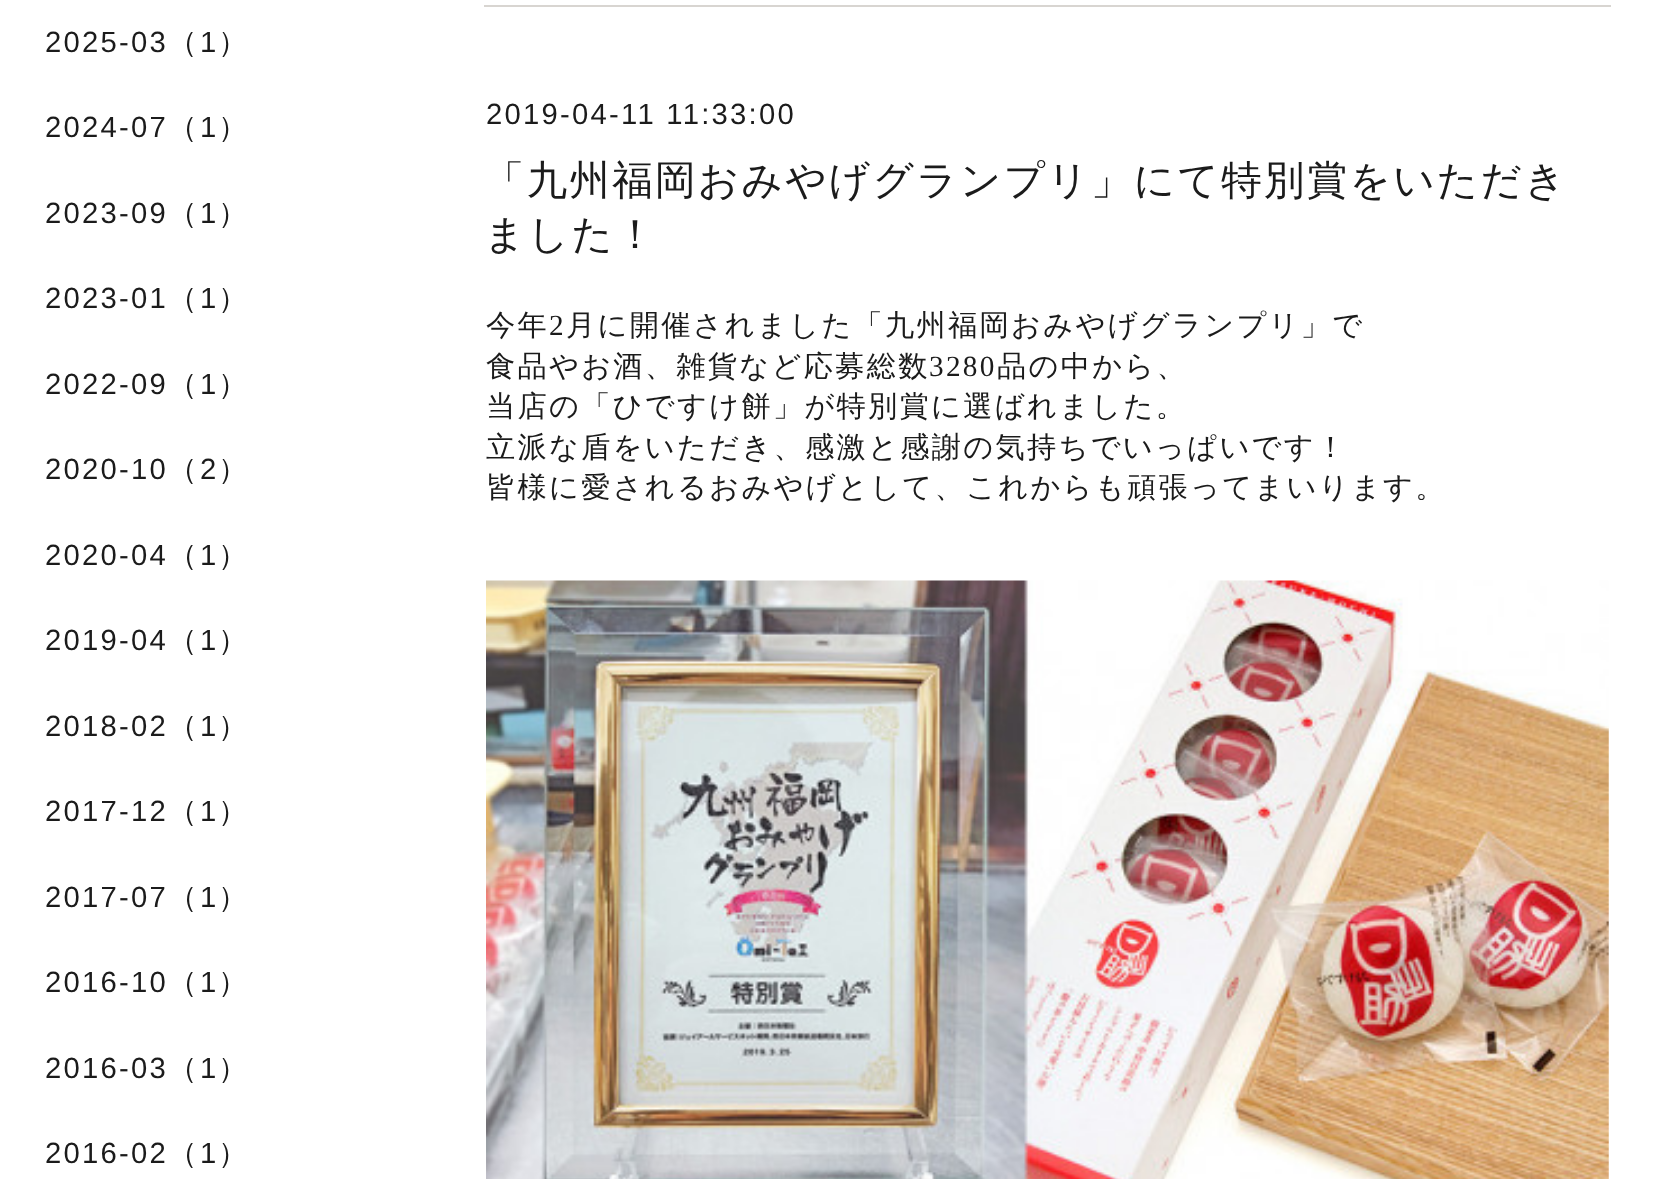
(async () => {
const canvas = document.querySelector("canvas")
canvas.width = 1654
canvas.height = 1179
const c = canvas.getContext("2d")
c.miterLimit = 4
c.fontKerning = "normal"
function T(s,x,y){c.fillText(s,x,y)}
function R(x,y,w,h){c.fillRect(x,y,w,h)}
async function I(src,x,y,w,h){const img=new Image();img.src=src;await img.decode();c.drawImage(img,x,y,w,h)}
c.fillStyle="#fff"
R(0,0,1654,1179)
c.letterSpacing="2.25px"
c.font="29.25px Liberation Sans"
c.fillStyle="#1b1b1b"
T("2025-03",45,52)
c.font="500 29.25px WenQuanYi Zen Hei"
T("（",168,52)
c.font="29.25px Liberation Sans"
T("1",200,52)
c.font="500 29.25px WenQuanYi Zen Hei"
T("）",218,52)
c.font="29.25px Liberation Sans"
T("2024-07",45,137)
c.font="500 29.25px WenQuanYi Zen Hei"
T("（",168,137)
c.font="29.25px Liberation Sans"
T("1",200,137)
c.font="500 29.25px WenQuanYi Zen Hei"
T("）",218,137)
c.font="29.25px Liberation Sans"
T("2023-09",45,223)
c.font="500 29.25px WenQuanYi Zen Hei"
T("（",168,223)
c.font="29.25px Liberation Sans"
T("1",200,223)
c.font="500 29.25px WenQuanYi Zen Hei"
T("）",218,223)
c.font="29.25px Liberation Sans"
T("2023-01",45,308)
c.font="500 29.25px WenQuanYi Zen Hei"
T("（",168,308)
c.font="29.25px Liberation Sans"
T("1",200,308)
c.font="500 29.25px WenQuanYi Zen Hei"
T("）",218,308)
c.font="29.25px Liberation Sans"
T("2022-09",45,394)
c.font="500 29.25px WenQuanYi Zen Hei"
T("（",168,394)
c.font="29.25px Liberation Sans"
T("1",200,394)
c.font="500 29.25px WenQuanYi Zen Hei"
T("）",218,394)
c.font="29.25px Liberation Sans"
T("2020-10",45,479)
c.font="500 29.25px WenQuanYi Zen Hei"
T("（",168,479)
c.font="29.25px Liberation Sans"
T("2",200,479)
c.font="500 29.25px WenQuanYi Zen Hei"
T("）",218,479)
c.font="29.25px Liberation Sans"
T("2020-04",45,565)
c.font="500 29.25px WenQuanYi Zen Hei"
T("（",168,565)
c.font="29.25px Liberation Sans"
T("1",200,565)
c.font="500 29.25px WenQuanYi Zen Hei"
T("）",218,565)
c.font="29.25px Liberation Sans"
T("2019-04",45,650)
c.font="500 29.25px WenQuanYi Zen Hei"
T("（",168,650)
c.font="29.25px Liberation Sans"
T("1",200,650)
c.font="500 29.25px WenQuanYi Zen Hei"
T("）",218,650)
c.font="29.25px Liberation Sans"
T("2018-02",45,736)
c.font="500 29.25px WenQuanYi Zen Hei"
T("（",168,736)
c.font="29.25px Liberation Sans"
T("1",200,736)
c.font="500 29.25px WenQuanYi Zen Hei"
T("）",218,736)
c.font="29.25px Liberation Sans"
T("2017-12",45,821)
c.font="500 29.25px WenQuanYi Zen Hei"
T("（",168,821)
c.font="29.25px Liberation Sans"
T("1",200,821)
c.font="500 29.25px WenQuanYi Zen Hei"
T("）",218,821)
c.font="29.25px Liberation Sans"
T("2017-07",45,907)
c.font="500 29.25px WenQuanYi Zen Hei"
T("（",168,907)
c.font="29.25px Liberation Sans"
T("1",200,907)
c.font="500 29.25px WenQuanYi Zen Hei"
T("）",218,907)
c.font="29.25px Liberation Sans"
T("2016-10",45,992)
c.font="500 29.25px WenQuanYi Zen Hei"
T("（",168,992)
c.font="29.25px Liberation Sans"
T("1",200,992)
c.font="500 29.25px WenQuanYi Zen Hei"
T("）",218,992)
c.font="29.25px Liberation Sans"
T("2016-03",45,1078)
c.font="500 29.25px WenQuanYi Zen Hei"
T("（",168,1078)
c.font="29.25px Liberation Sans"
T("1",200,1078)
c.font="500 29.25px WenQuanYi Zen Hei"
T("）",218,1078)
c.font="29.25px Liberation Sans"
T("2016-02",45,1163)
c.font="500 29.25px WenQuanYi Zen Hei"
T("（",168,1163)
c.font="29.25px Liberation Sans"
T("1",200,1163)
c.font="500 29.25px WenQuanYi Zen Hei"
T("）",218,1163)
c.fillStyle="#d8d5d1"
R(484,5,1127,2)
c.font="29.25px Liberation Sans"
c.fillStyle="#1b1b1b"
T("2019-04-11 11:33:00",486,124)
c.font="500 40.5px WenQuanYi Zen Hei"
T("「九州福岡おみやげグランプリ」にて特別賞をいただき",484,194)
T("ました！",484,248)
c.font="500 29.25px WenQuanYi Zen Hei"
T("今年",486,335)
c.font="29.25px Liberation Serif"
T("2",549,335)
c.font="500 29.25px WenQuanYi Zen Hei"
T("月に開催されました「九州福岡おみやげグランプリ」で",566,335)
T("食品やお酒、雑貨など応募総数",486,376)
c.font="29.25px Liberation Serif"
T("3280",929,376)
c.font="500 29.25px WenQuanYi Zen Hei"
T("品の中から、",997,376)
T("当店の「ひですけ餅」が特別賞に選ばれました。",486,416)
T("立派な盾をいただき、感激と感謝の気持ちでいっぱいです！",486,457)
T("皆様に愛されるおみやげとして、これからも頑張ってまいります。",486,497)
await I("1.png",486,580,1123,599)
})()
